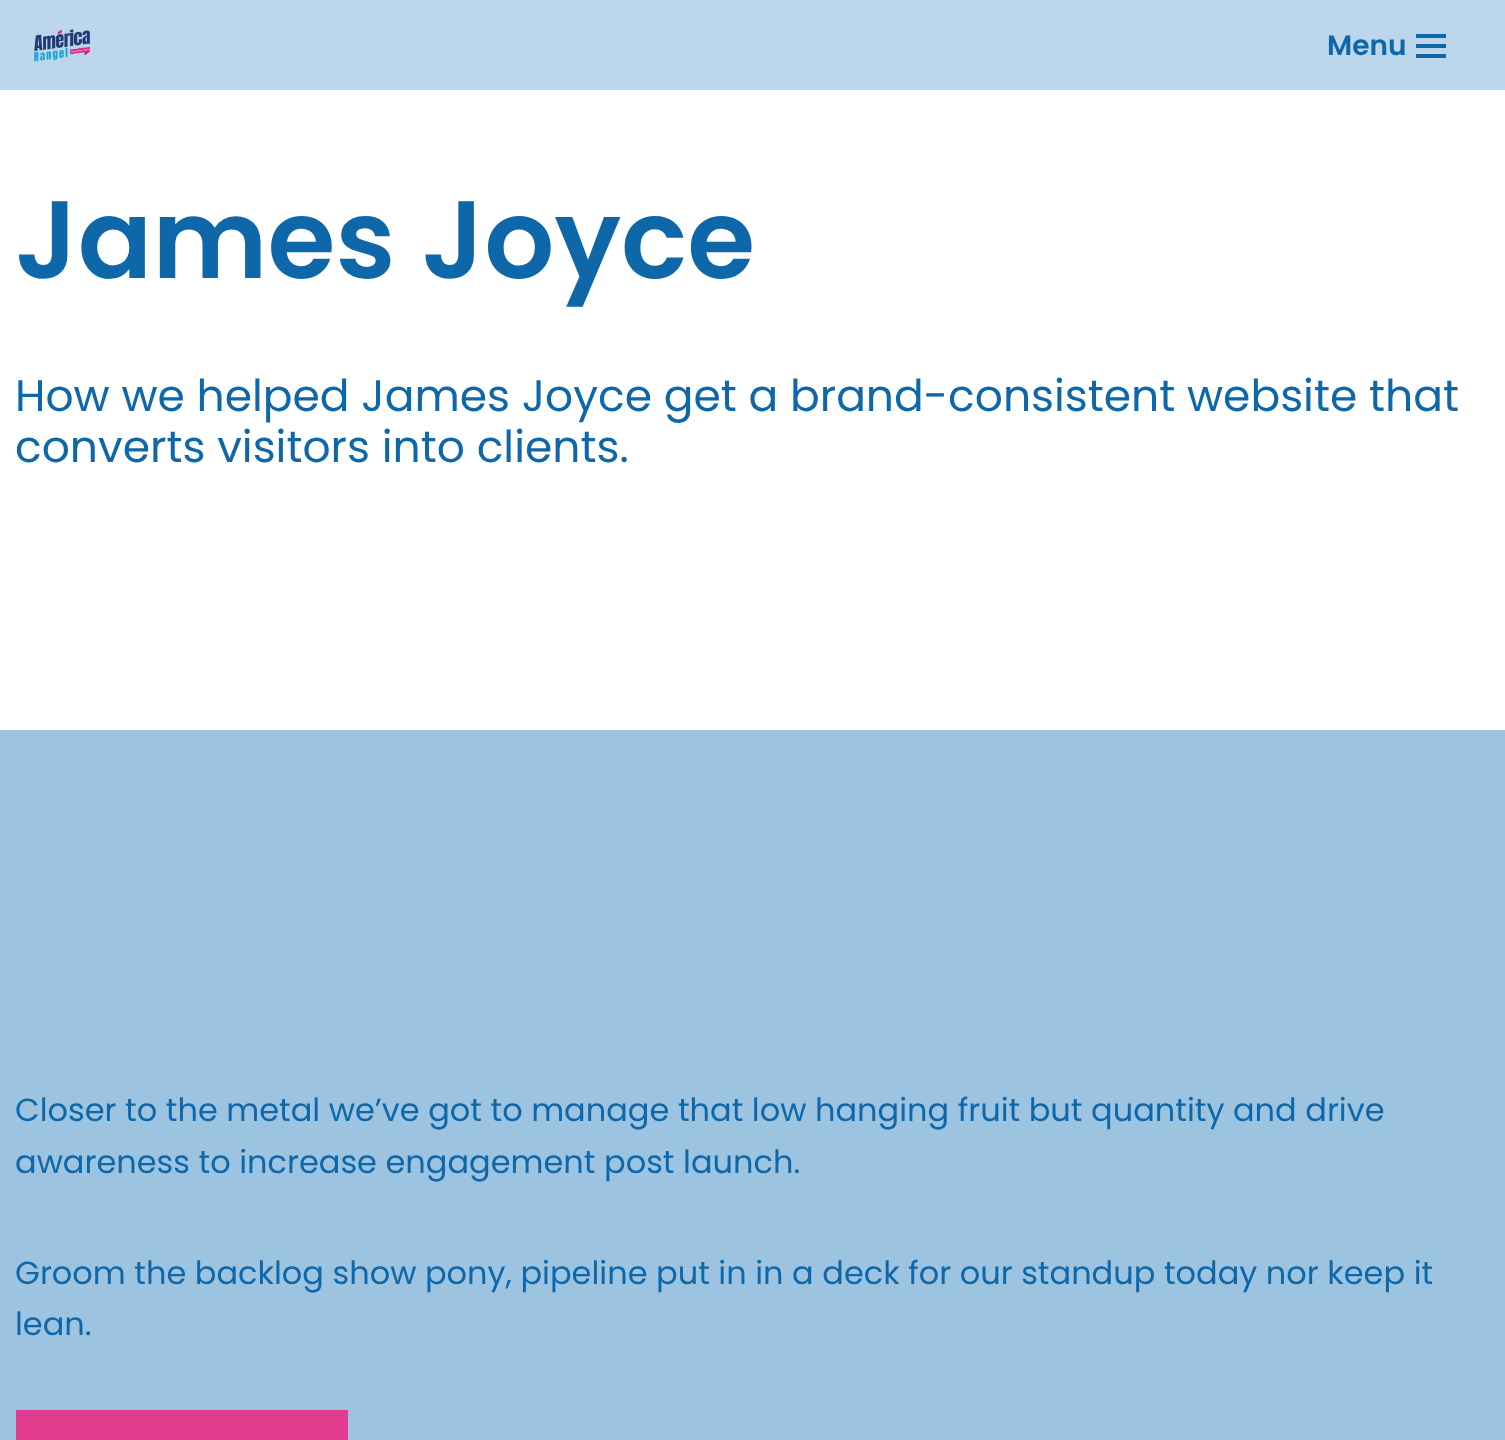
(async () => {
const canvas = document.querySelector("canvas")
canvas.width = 1505
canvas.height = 1440
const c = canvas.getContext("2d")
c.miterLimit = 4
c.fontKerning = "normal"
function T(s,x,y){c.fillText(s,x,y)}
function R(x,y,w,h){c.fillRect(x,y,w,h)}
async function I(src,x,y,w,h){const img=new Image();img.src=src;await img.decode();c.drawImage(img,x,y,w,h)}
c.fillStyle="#bcd7eb"
R(0,0,1505,1440)
await I("1.png",34,29,56,33)
c.font="600 28px Poppins"
c.fillStyle="#0e67a9"
T("Menu",1327,55)
R(1416,34,30,4)
R(1416,44,30,4)
R(1416,54,30,4)
c.fillStyle="#fff"
R(0,90,1505,640)
c.font="600 110px Poppins"
c.fillStyle="#0e67a9"
T("James Joyce",15,278)
c.font="44px Poppins"
T("How we helped James Joyce get a brand-consistent website that",15,411)
T("converts visitors into clients.",15,462)
c.fillStyle="#9cc4e1"
R(0,730,1505,710)
c.font="32px Poppins"
c.fillStyle="#0e67a9"
T("Closer to the metal we’ve got to manage that low hanging fruit but quantity and drive",15,1121)
T("awareness to increase engagement post launch.",15,1173)
T("Groom the backlog show pony, pipeline put in in a deck for our standup today nor keep it",15,1284)
T("lean.",15,1335)
c.fillStyle="#e23c8e"
R(16,1410,332,30)
})()
